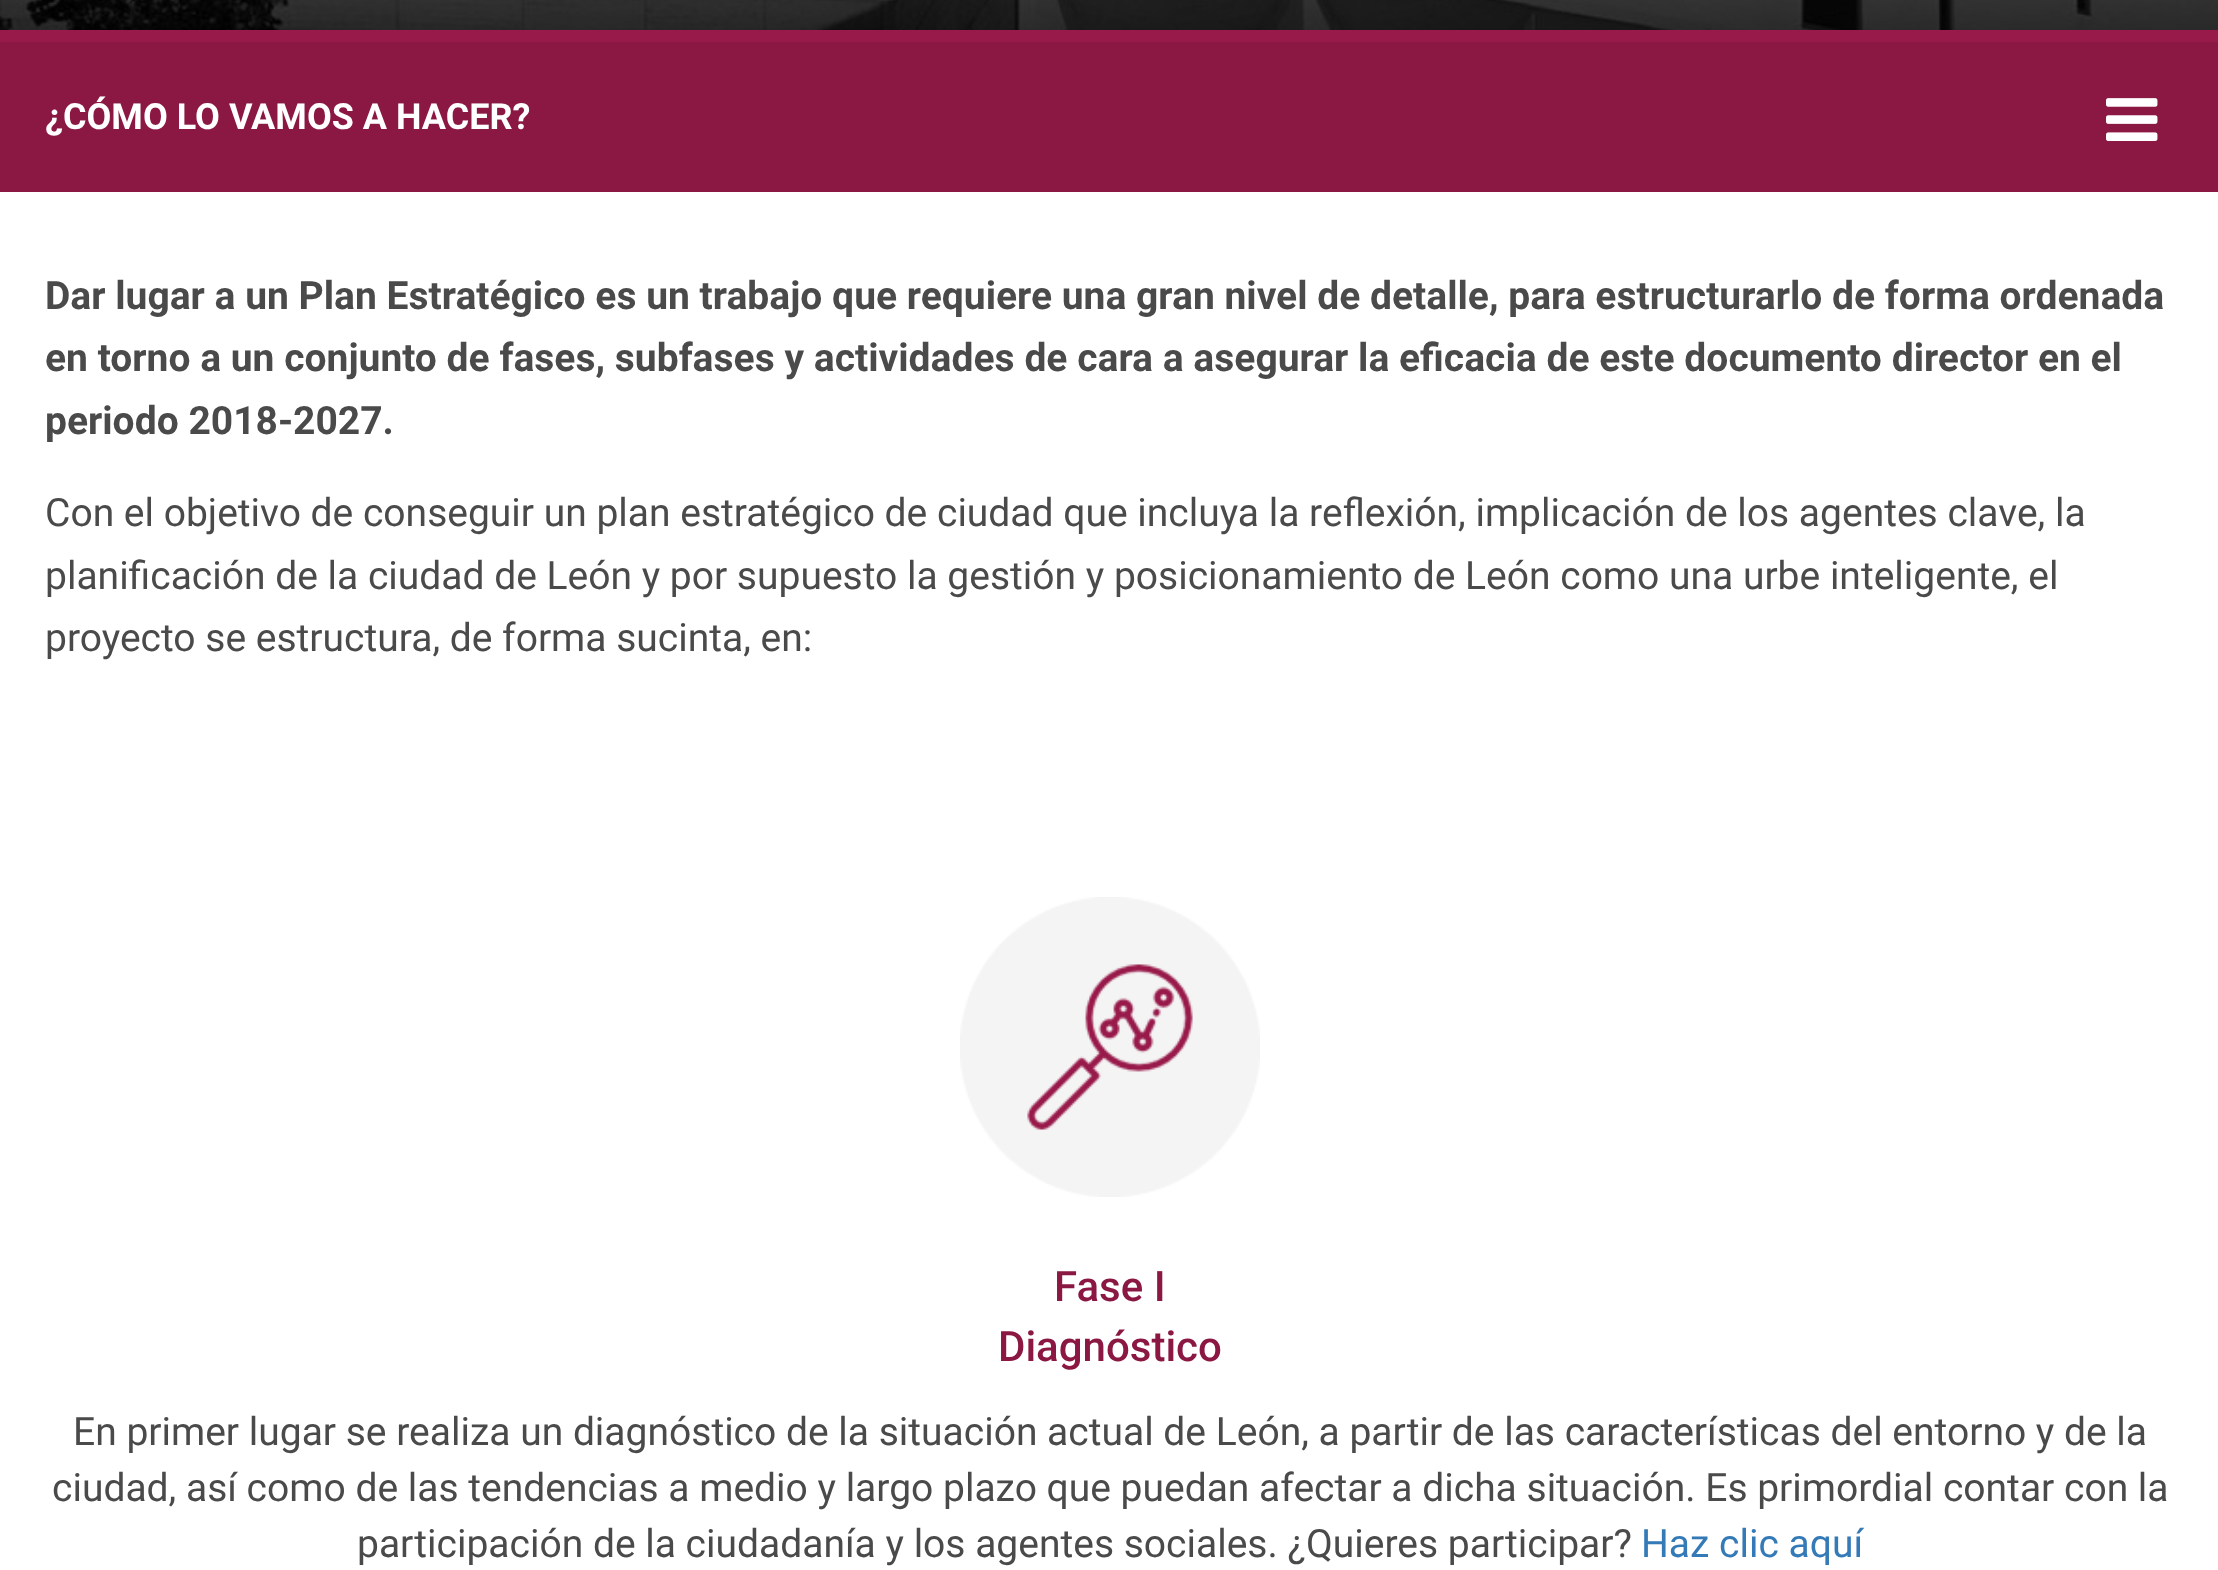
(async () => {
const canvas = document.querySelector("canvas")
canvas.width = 2218
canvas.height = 1570
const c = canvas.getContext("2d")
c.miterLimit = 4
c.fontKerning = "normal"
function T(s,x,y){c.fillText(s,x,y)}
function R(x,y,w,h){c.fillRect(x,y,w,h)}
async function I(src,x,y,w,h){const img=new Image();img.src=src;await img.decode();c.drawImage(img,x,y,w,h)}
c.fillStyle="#fff"
R(0,0,2218,1570)
await I("1.png",0,0,2218,30)
c.fillStyle="#981a4a"
R(0,30,2218,12)
c.fillStyle="#8a1843"
R(0,42,2218,150)
c.font="bold 36px Roboto"
c.fillStyle="#fff"
T("¿CÓMO LO VAMOS A HACER?",45,129)
await I("2.png",2106,98,52,43)
c.font="bold 39px Roboto"
c.fillStyle="#4a4a4a"
T("Dar lugar a un Plan Estratégico es un trabajo que requiere una gran nivel de detalle, para estructurarlo de forma ordenada",45,309)
T("en torno a un conjunto de fases, subfases y actividades de cara a asegurar la eficacia de este documento director en el",45,371)
T("periodo 2018-2027.",45,434)
c.font="39px Roboto"
T("Con el objetivo de conseguir un plan estratégico de ciudad que incluya la reflexión, implicación de los agentes clave, la",45,526)
T("planificación de la ciudad de León y por supuesto la gestión y posicionamiento de León como una urbe inteligente, el",45,589)
T("proyecto se estructura, de forma sucinta, en:",45,651)
await I("3.png",960,897,300,300)
c.font="500 42px Roboto"
c.fillStyle="#8a1843"
T("Fase I",1054,1301)
T("Diagnóstico",998,1361)
c.font="39px Roboto"
c.fillStyle="#4a4a4a"
T("En primer lugar se realiza un diagnóstico de la situación actual de León, a partir de las características del entorno y de la",73,1445)
T("ciudad, así como de las tendencias a medio y largo plazo que puedan afectar a dicha situación. Es primordial contar con la",52,1501)
T("participación de la ciudadanía y los agentes sociales. ¿Quieres participar?",357,1557)
c.fillStyle="#337ab7"
T("Haz clic aquí",1641,1557)
})()
